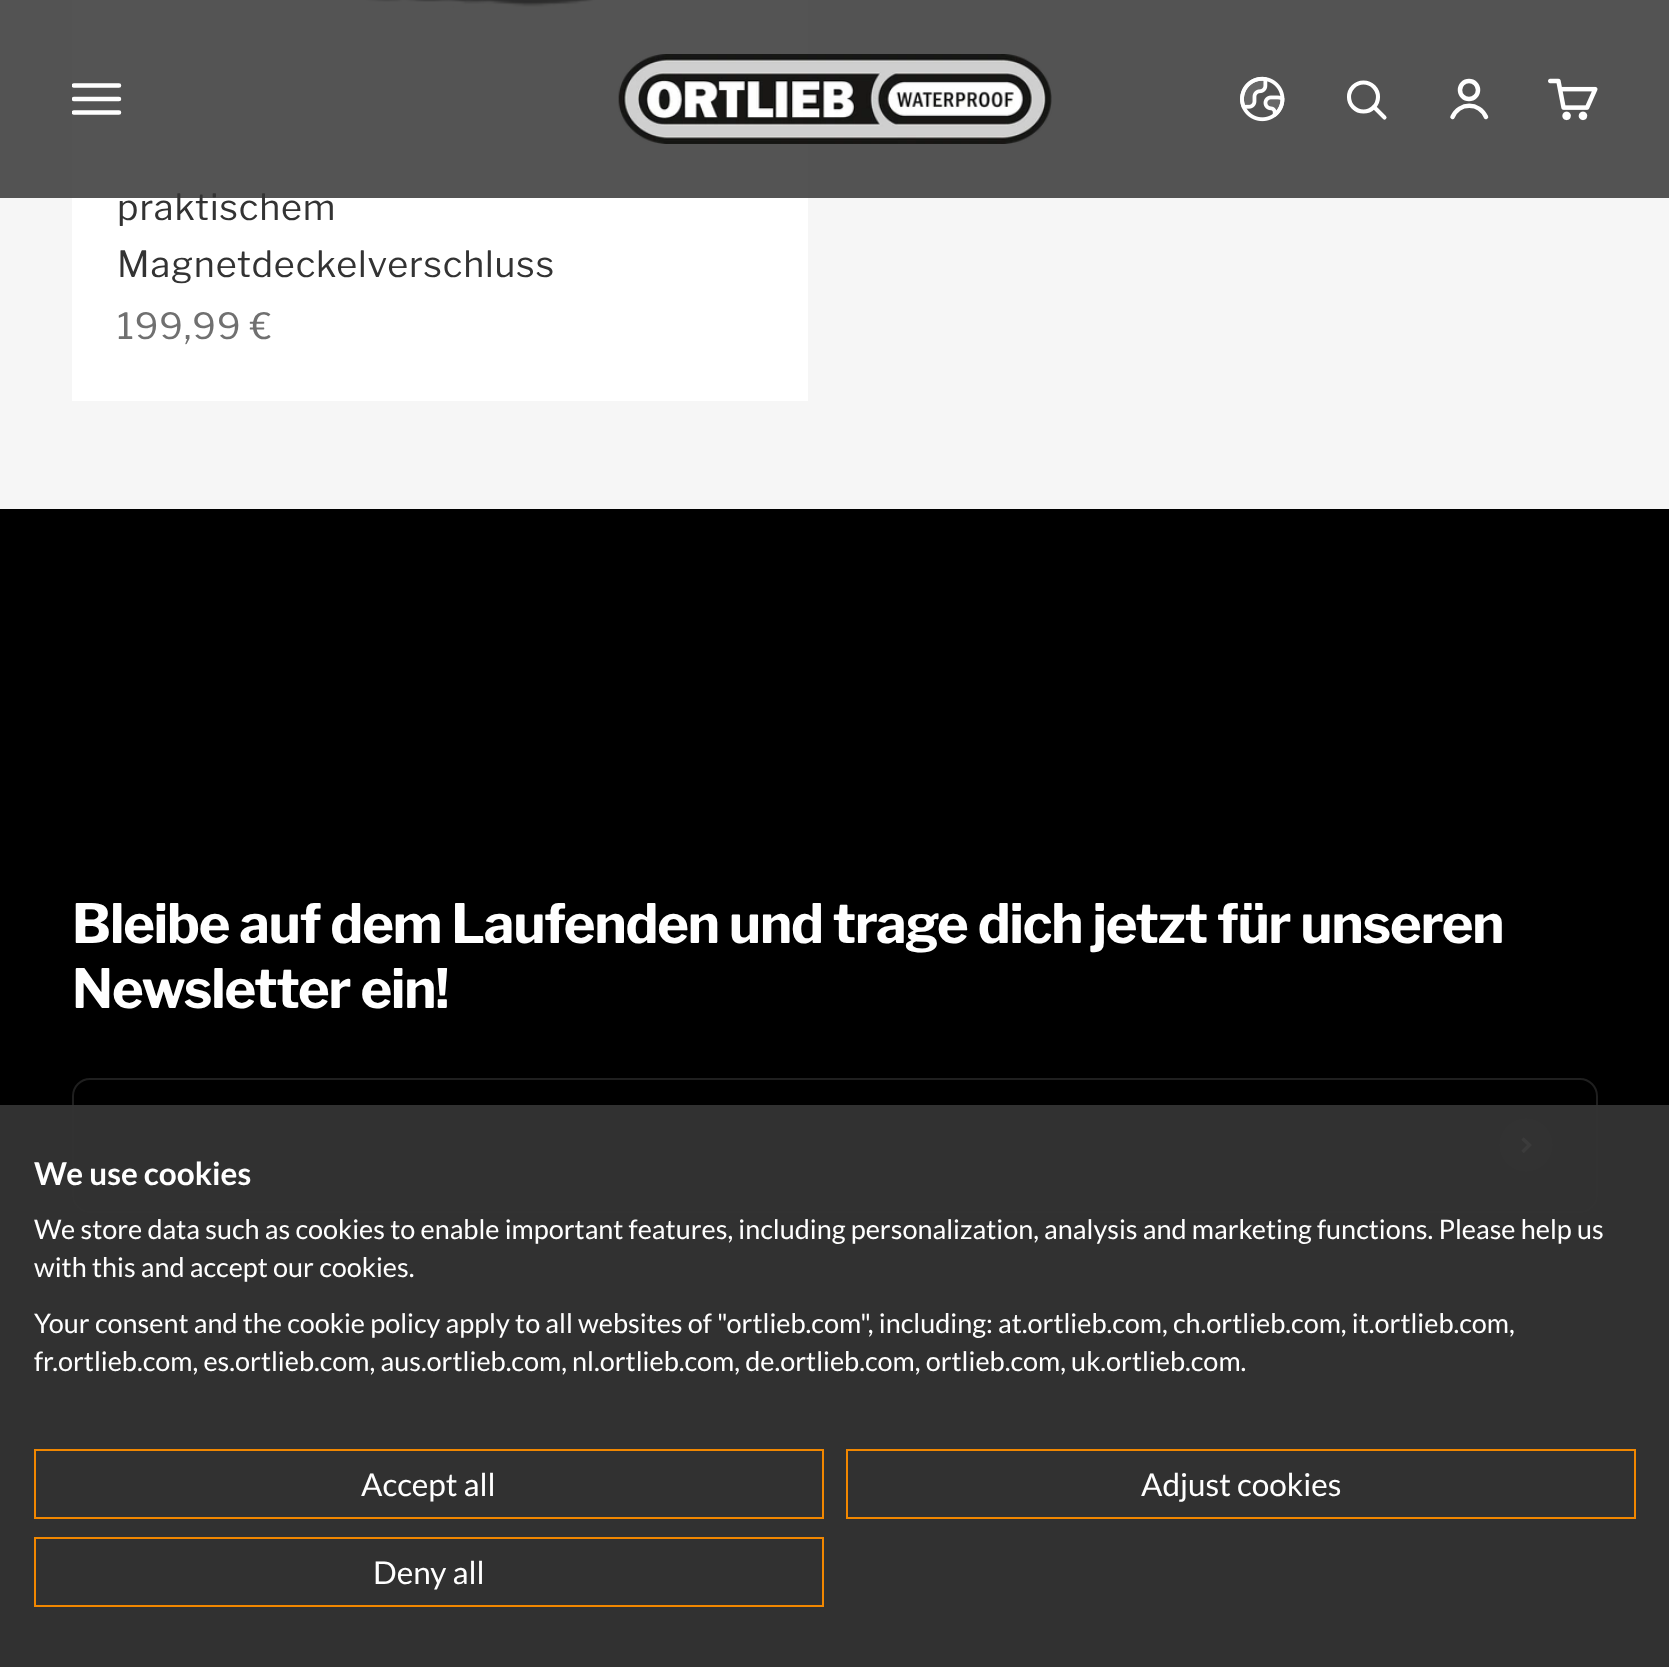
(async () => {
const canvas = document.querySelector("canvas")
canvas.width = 1669
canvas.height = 1667
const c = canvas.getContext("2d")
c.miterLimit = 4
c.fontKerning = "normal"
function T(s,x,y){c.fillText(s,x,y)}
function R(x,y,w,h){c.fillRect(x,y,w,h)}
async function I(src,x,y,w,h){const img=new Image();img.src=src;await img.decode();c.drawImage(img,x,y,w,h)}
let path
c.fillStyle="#f6f6f6"
R(0,0,1669,1667)
c.fillStyle="#fff"
R(72,0,736,401)
await I("4.png",366,0,235,8)
c.letterSpacing="0.9px"
c.font="36px Libre Franklin"
c.fillStyle="#333"
T("praktischem",117,220)
c.fillStyle="#333333d6"
R(0,0,1669,198)
c.save()
c.beginPath()
c.rect(72,74,50,50)
c.clip()
path = new Path2D("M74 85.5h45m-45 13.5h45m-45 13.5h45")
c.strokeStyle="#fff"
c.lineWidth=4.5
c.lineCap="round"
c.stroke(path)
c.restore()
await I("1.png",618,54,434,90)
await I("2.png",1240,76,45,46)
c.beginPath()
c.arc(1363.5,97,14.5,0,7)
c.strokeStyle="#fff"
c.lineWidth=4.1
c.stroke()
path = new Path2D("M1374 107l10.5 10.5")
c.lineCap="round"
c.lineJoin="round"
c.stroke(path)
c.beginPath()
c.arc(1469,90,9,0,7)
c.lineWidth=4.5
c.stroke()
path = new Path2D("M1452.5 117c7-15 26.5-15 33.5 0")
c.lineJoin="miter"
c.stroke(path)
await I("3.png",1548,78,50,43)
c.fillStyle="#333"
T("Magnetdeckelverschluss",117,277)
c.fillStyle="#707070"
T("199,99 €",117,339)
c.fillStyle="#000"
R(0,509,1669,1158)
c.letterSpacing="-1.08px"
c.font="bold 54px Libre Franklin"
c.fillStyle="#fff"
T("Bleibe auf dem Laufenden und trage dich jetzt für unseren",72,943)
T("Newsletter ein!",72,1008)
c.beginPath()
c.roundRect(73,1079,1524,133,17)
c.strokeStyle="#1f1f1f"
c.lineWidth=2
c.stroke()
c.fillStyle="#1a1a1a"
c.beginPath()
c.arc(1526,1145,27,0,7)
c.fill()
path = new Path2D("M1522.5 1152l7-7l-7-6.5")
c.strokeStyle="#fff"
c.lineWidth=3.4
c.lineCap="butt"
c.stroke(path)
c.fillStyle="#333333f5"
R(0,1105,1669,562)
c.letterSpacing="0px"
c.font="bold 31.5px Lato"
c.fillStyle="#fff"
T("We use cookies",34,1185)
c.font="27px Lato"
T("We store data such as cookies to enable important features, including personalization, analysis and marketing functions. Please help us",34,1239)
T("with this and accept our cookies.",34,1277)
T("Your consent and the cookie policy apply to all websites of \"ortlieb.com\", including: at.ortlieb.com, ch.ortlieb.com, it.ortlieb.com,",34,1333)
T("fr.ortlieb.com, es.ortlieb.com, aus.ortlieb.com, nl.ortlieb.com, de.ortlieb.com, ortlieb.com, uk.ortlieb.com.",34,1371)
c.strokeStyle="#f18700"
c.lineWidth=2
c.strokeRect(35,1450,788,68)
c.font="31.5px Lato"
T("Accept all",361,1496)
c.strokeRect(847,1450,788,68)
T("Adjust cookies",1141,1496)
c.strokeRect(35,1538,788,68)
T("Deny all",373,1584)
})()
